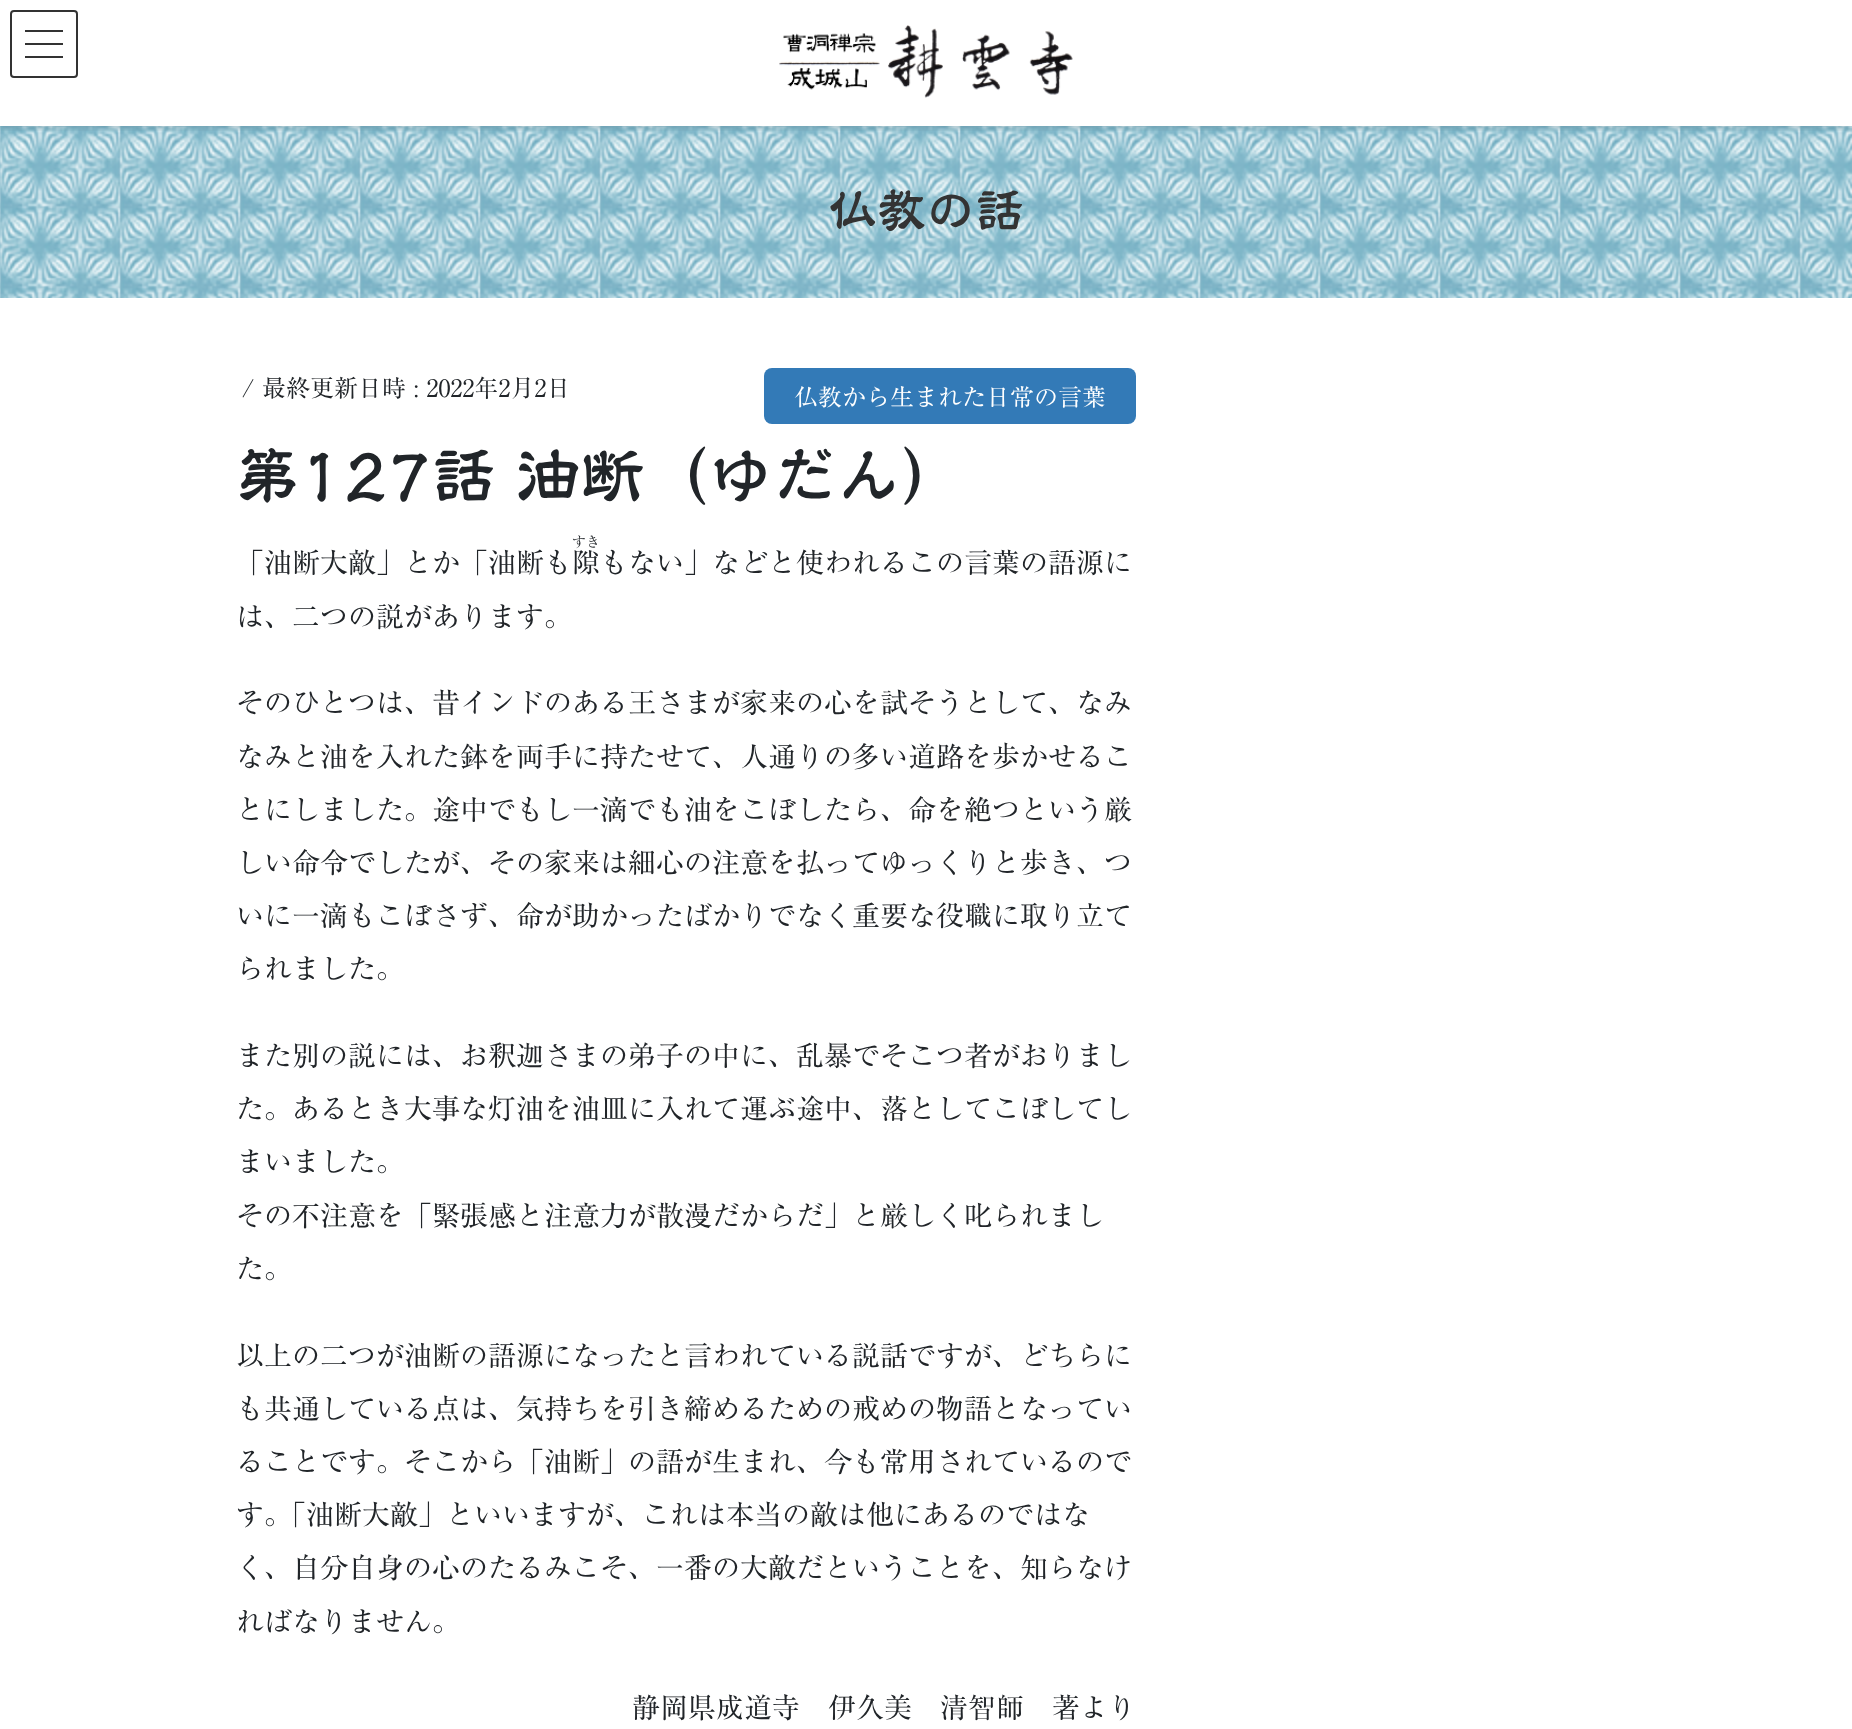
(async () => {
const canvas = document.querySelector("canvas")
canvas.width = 1852
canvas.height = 1729
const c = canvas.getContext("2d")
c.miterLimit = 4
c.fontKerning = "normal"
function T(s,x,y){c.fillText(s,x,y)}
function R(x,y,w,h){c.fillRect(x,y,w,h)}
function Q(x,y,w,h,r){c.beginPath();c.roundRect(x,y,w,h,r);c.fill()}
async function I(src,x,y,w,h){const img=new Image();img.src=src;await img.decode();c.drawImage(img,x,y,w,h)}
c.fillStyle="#fff"
R(0,0,1852,1729)
await I("2.png",0,126,1852,172)
c.save()
c.beginPath()
c.rect(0,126,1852,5)
c.clip()
c.fillStyle="#0000001a"
c.filter="blur(3px)"
c.beginPath()
c.rect(0,2,1852,126)
c.fill()
c.filter="none"
c.restore()
await I("1.png",779,25,294,73)
c.fillStyle="#333"
R(25,30,38,2)
R(25,43,38,2)
R(25,56,38,2)
c.beginPath()
c.roundRect(11,11,66,66,3)
c.strokeStyle="#333"
c.lineWidth=2
c.stroke()
c.font="49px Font"
T("仏教の話",828,229)
c.font="24px 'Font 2'"
c.fillStyle="#212529"
T("/ 最終更新日時 : 2022年2月2日",242,397)
c.fillStyle="#337ab7"
Q(764,368,372,56,8)
c.fillStyle="#fff"
T("仏教から生まれた日常の言葉",794,406)
c.font="64px Font"
c.fillStyle="#212529"
T("第127話 油断（ゆだん）",236,500)
c.font="14px 'Font 2'"
T("すき",572,547)
c.font="28px 'Font 2'"
T("「油断大敵」とか「油断も隙もない」などと使われるこの言葉の語源に",236,573)
T("は、二つの説があります。",236,627)
T("そのひとつは、昔インドのある王さまが家来の心を試そうとして、なみ",236,713)
T("なみと油を入れた鉢を両手に持たせて、人通りの多い道路を歩かせるこ",236,767)
T("とにしました。途中でもし一滴でも油をこぼしたら、命を絶つという厳",236,820)
T("しい命令でしたが、その家来は細心の注意を払ってゆっくりと歩き、つ",236,873)
T("いに一滴もこぼさず、命が助かったばかりでなく重要な役職に取り立て",236,926)
T("られました。",236,979)
T("また別の説には、お釈迦さまの弟子の中に、乱暴でそこつ者がおりまし",236,1066)
T("た。あるとき大事な灯油を油皿に入れて運ぶ途中、落としてこぼしてし",236,1119)
T("まいました。",236,1172)
T("その不注意を「緊張感と注意力が散漫だからだ」と厳しく叱られまし",236,1226)
T("た。",236,1279)
T("以上の二つが油断の語源になったと言われている説話ですが、どちらに",236,1366)
T("も共通している点は、気持ちを引き締めるための戒めの物語となってい",236,1419)
T("ることです。そこから「油断」の語が生まれ、今も常用されているので",236,1472)
T("す。「油断大敵」といいますが、これは本当の敵は他にあるのではな",236,1525)
T("く、自分自身の心のたるみこそ、一番の大敵だということを、知らなけ",236,1578)
T("ればなりません。",236,1632)
T("静岡県成道寺　伊久美　清智師　著より",632,1718)
})()
